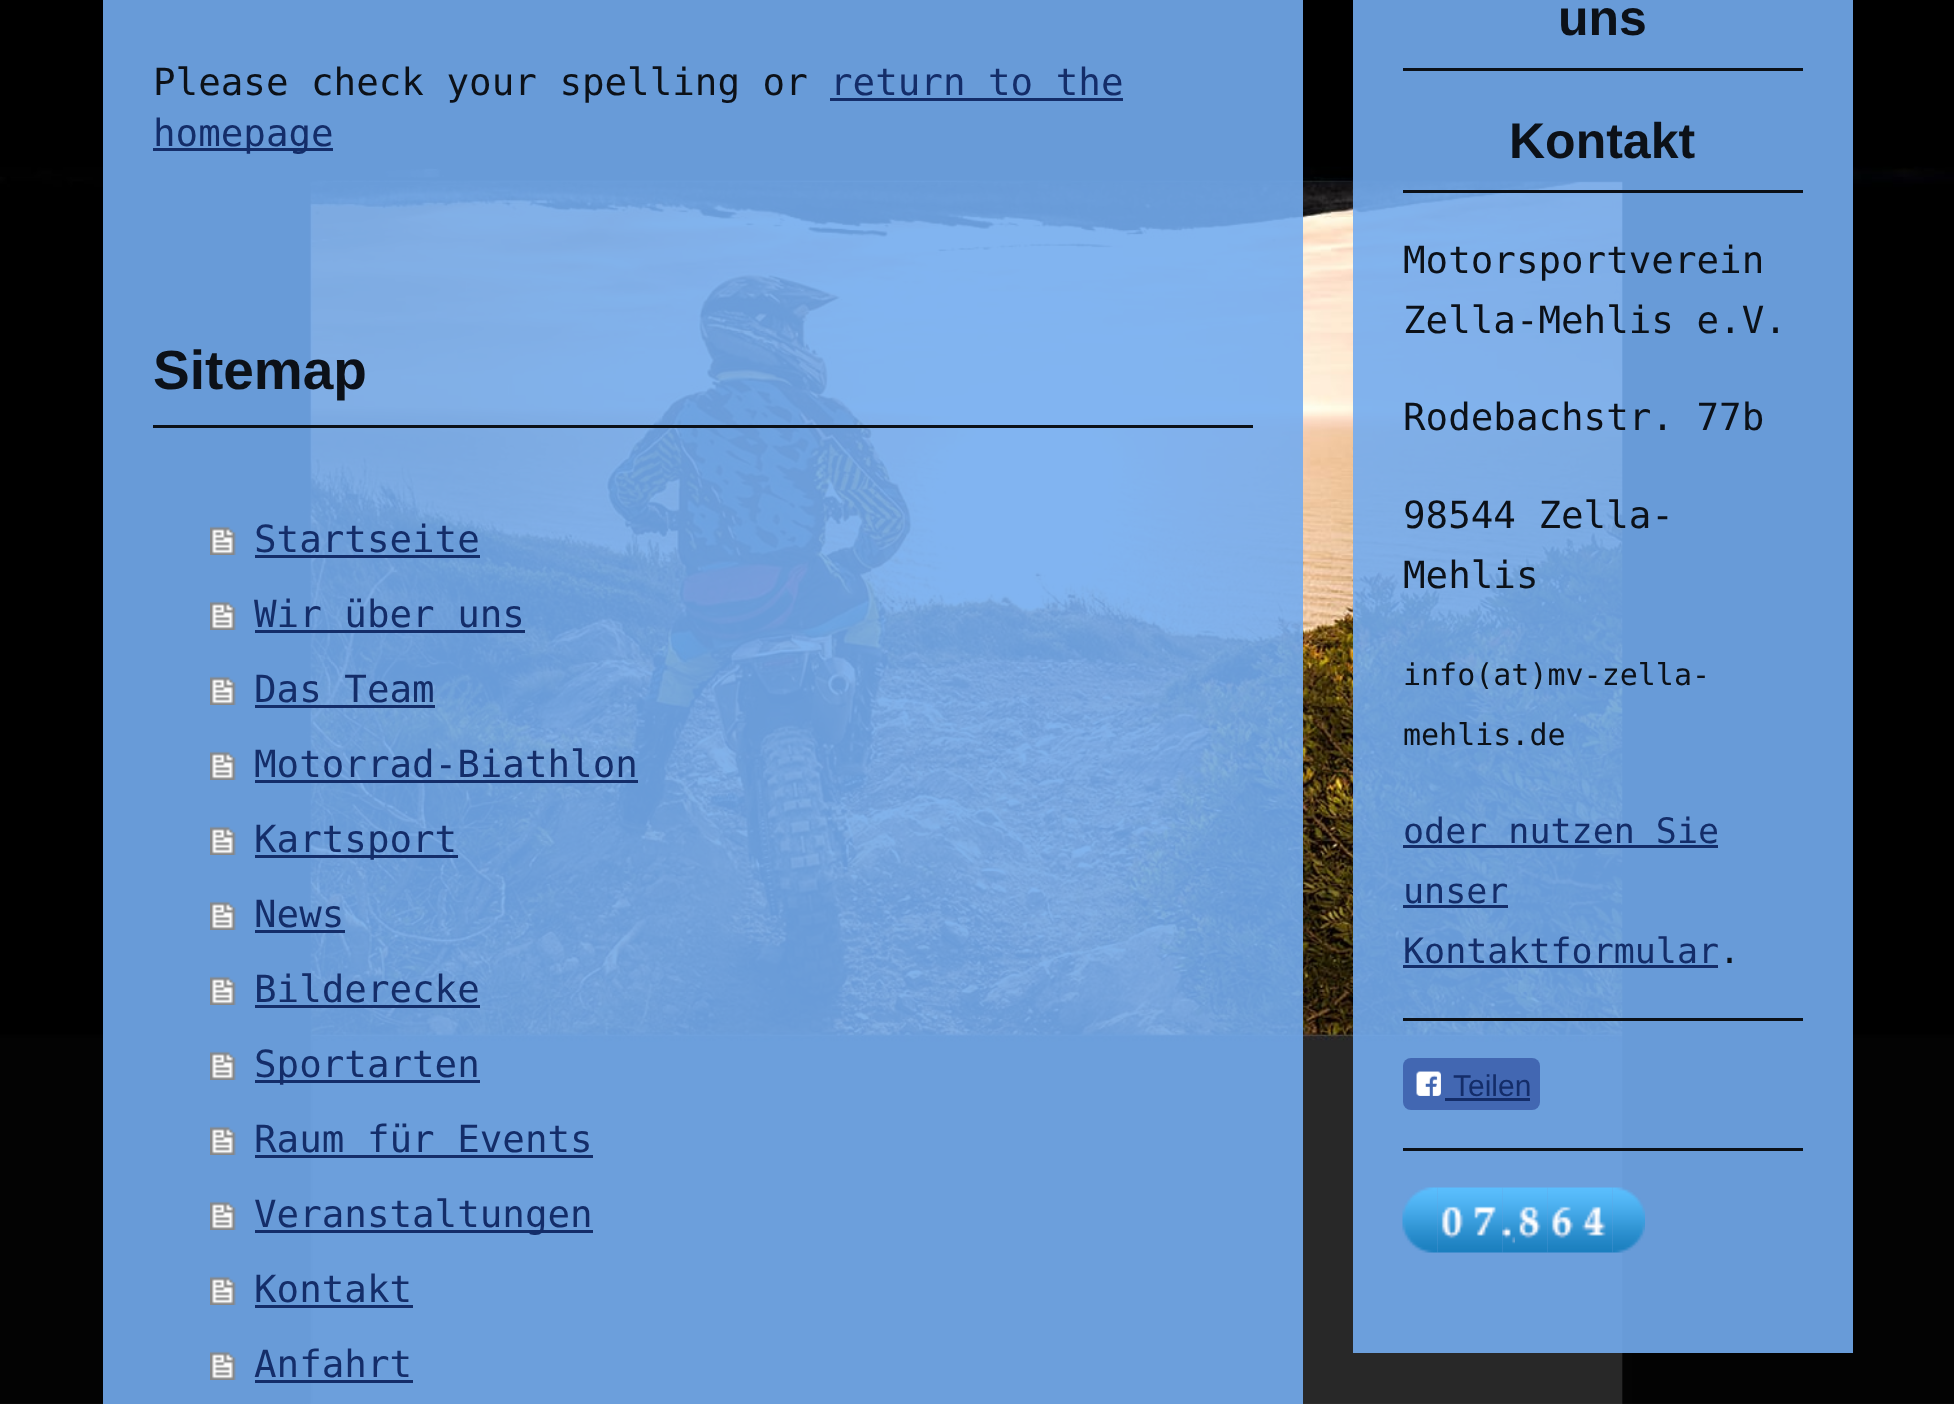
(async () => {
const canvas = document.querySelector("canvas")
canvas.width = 1954
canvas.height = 1404
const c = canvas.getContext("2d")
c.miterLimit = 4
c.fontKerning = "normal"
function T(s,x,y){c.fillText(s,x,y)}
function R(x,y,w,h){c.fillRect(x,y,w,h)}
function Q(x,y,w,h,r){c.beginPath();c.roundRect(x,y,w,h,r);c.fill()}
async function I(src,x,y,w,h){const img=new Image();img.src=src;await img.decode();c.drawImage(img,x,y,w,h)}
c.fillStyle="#fff"
R(0,0,1954,1404)
await I("1.png",0,0,1954,1404)
c.fillStyle="#73acf0e6"
R(103,0,1200,1404)
c.font="37.5px DejaVu Sans Mono"
c.fillStyle="#0c1118"
T("Please check your spelling or",153,95)
c.fillStyle="#142d69"
T("return to the",830,95)
R(830,98,293,3)
R(153,148,180,3)
T("homepage",153,146)
c.fillStyle="#0c1118"
R(153,425,1100,3)
c.font="bold 55px Liberation Sans"
T("Sitemap",153,389)
await I("2.png",210,526,26,29)
c.font="37.5px DejaVu Sans Mono"
c.fillStyle="#142d69"
T("Startseite",254,552)
R(255,555,225,3)
await I("2.png",210,601,26,29)
T("Wir über uns",254,627)
R(255,630,270,3)
await I("2.png",210,676,26,29)
T("Das Team",254,702)
R(255,705,180,3)
await I("2.png",210,751,26,29)
T("Motorrad-Biathlon",254,777)
R(255,780,383,3)
await I("3.png",210,826,26,29)
R(255,855,203,3)
T("Kartsport",254,852)
await I("2.png",210,901,26,29)
T("News",254,927)
R(255,930,90,3)
await I("2.png",210,976,26,29)
T("Bilderecke",254,1002)
R(255,1005,225,3)
await I("4.png",210,1051,26,29)
R(255,1080,225,3)
T("Sportarten",254,1077)
await I("4.png",210,1126,26,29)
T("Raum für Events",254,1152)
R(255,1155,338,3)
await I("4.png",210,1201,26,29)
R(255,1230,338,3)
T("Veranstaltungen",254,1227)
await I("4.png",210,1276,26,29)
T("Kontakt",254,1302)
R(255,1305,158,3)
await I("4.png",210,1351,26,29)
T("Anfahrt",254,1377)
R(255,1380,158,3)
c.fillStyle="#73acf0e6"
R(1353,0,500,1353)
c.fillStyle="#0c1118"
R(1403,68,400,3)
c.font="bold 50px Liberation Sans"
T("uns",1558,35)
R(1403,190,400,3)
T("Kontakt",1509,158)
c.font="37.5px DejaVu Sans Mono"
T("Motorsportverein",1403,273)
T("Zella-Mehlis e.V.",1403,333)
T("Rodebachstr. 77b",1403,430)
T("98544 Zella-",1403,528)
T("Mehlis",1403,588)
c.font="30px DejaVu Sans Mono"
T("info(at)mv-zella-",1403,685)
T("mehlis.de",1403,745)
c.font="35px DejaVu Sans Mono"
c.fillStyle="#142d69"
T("oder nutzen Sie",1403,843)
R(1403,845,315,3)
T("unser",1403,903)
R(1403,905,105,3)
T("Kontaktformular",1403,963)
c.fillStyle="#0c1118"
T(".",1719,963)
c.fillStyle="#142d69"
R(1403,965,315,3)
c.fillStyle="#0c1118"
R(1403,1018,400,3)
c.fillStyle="#4267b2"
Q(1403,1058,137,52,8)
await I("5.png",1416,1071,25,25)
c.font="30px Liberation Sans"
c.fillStyle="#142d69"
T("Teilen",1453,1096)
R(1445,1098,85,3)
c.fillStyle="#0c1118"
R(1403,1148,400,3)
await I("6.png",1402,1187,36,66)
await I("7.png",1437,1187,33,66)
await I("8.png",1470,1187,33,66)
await I("9.png",1502,1187,13,66)
await I("10.png",1515,1187,33,66)
await I("11.png",1547,1187,33,66)
await I("12.png",1580,1187,33,66)
await I("13.png",1612,1187,33,66)
})()
